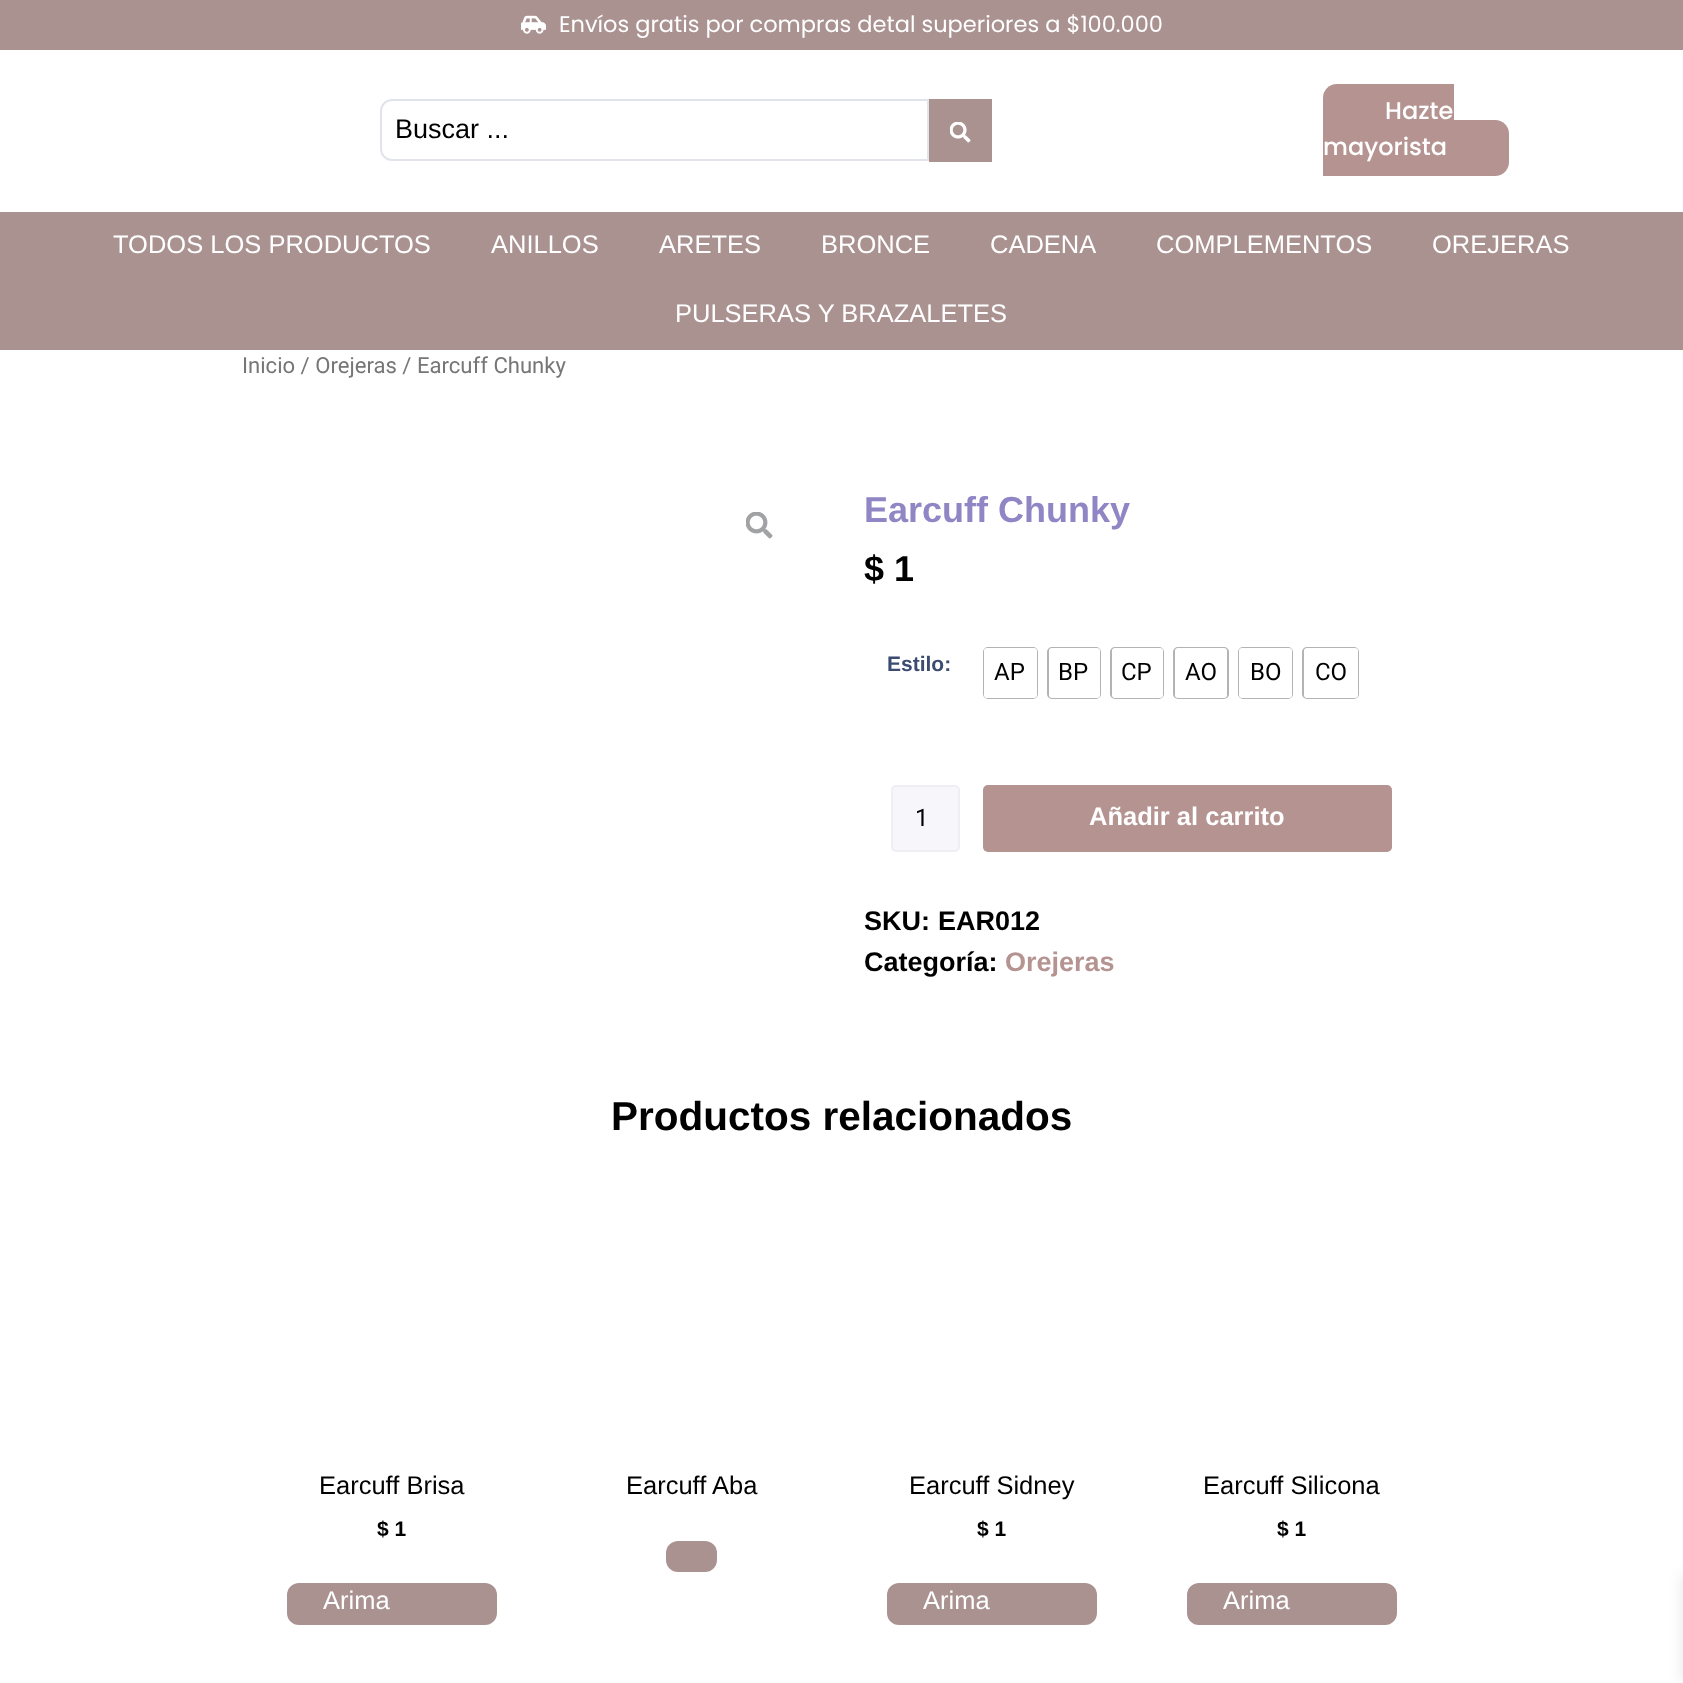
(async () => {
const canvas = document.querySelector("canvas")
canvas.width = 1683
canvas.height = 1683
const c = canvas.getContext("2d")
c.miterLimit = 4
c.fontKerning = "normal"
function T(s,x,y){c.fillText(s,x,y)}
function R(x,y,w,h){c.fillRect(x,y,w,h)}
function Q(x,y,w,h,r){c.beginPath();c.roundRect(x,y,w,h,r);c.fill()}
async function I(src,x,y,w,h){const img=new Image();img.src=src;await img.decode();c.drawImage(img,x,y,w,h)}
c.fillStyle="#fff"
R(0,0,1683,1683)
c.fillStyle="#aa9291"
R(0,0,1683,50)
await I("1.png",521,15,25,19)
c.font="22.5px Poppins"
c.fillStyle="#fff"
T("Envíos gratis por compras detal superiores a $100.000",559,32)
c.beginPath()
c.roundRect(381,100,547,60,[11,0,0,11])
c.strokeStyle="#e1e5eb"
c.lineWidth=2
c.stroke()
c.font="27px Liberation Sans"
c.fillStyle="#000"
T("Buscar ...",395,138)
c.fillStyle="#aa9291"
R(929,99,63,63)
await I("2.png",950,122,21,21)
c.fillStyle="#b49391"
c.beginPath()
c.roundRect(1323,84,131,56,[14,0,0,14])
c.fill()
c.font="500 24px Poppins"
c.fillStyle="#fff"
T("Hazte",1385,119)
c.fillStyle="#b49391"
c.beginPath()
c.roundRect(1323,120,186,56,[0,14,14,0])
c.fill()
c.fillStyle="#fff"
T("mayorista",1323,155)
c.fillStyle="#aa9291"
R(0,212,1683,138)
c.font="25.5px Liberation Sans"
c.fillStyle="#fff"
T("TODOS LOS PRODUCTOS",113,253)
T("ANILLOS",491,253)
T("ARETES",659,253)
T("BRONCE",821,253)
T("CADENA",990,253)
T("COMPLEMENTOS",1156,253)
T("OREJERAS",1432,253)
T("PULSERAS Y BRAZALETES",675,322)
c.font="22.1px Roboto"
c.fillStyle="#767676"
T("Inicio / Orejeras / Earcuff Chunky",242,373)
await I("3.png",746,512,27,27)
c.font="bold 36px Liberation Sans"
c.fillStyle="#9086c5"
T("Earcuff Chunky",864,522)
c.fillStyle="#000"
T("$ 1",864,581)
c.font="bold 21px Liberation Sans"
c.fillStyle="#3c4b71"
T("Estilo:",887,671)
c.beginPath()
c.roundRect(984,648,53,50,4)
c.strokeStyle="#b3b3b3"
c.stroke()
c.fillStyle="#fff"
Q(984,648,53,50,3)
c.font="24px Roboto"
c.fillStyle="#000"
T("AP",994,680)
c.beginPath()
c.roundRect(1048,648,52,50,4)
c.stroke()
c.fillStyle="#fff"
Q(1049,648,51,50,3)
c.fillStyle="#000"
T("BP",1058,680)
c.beginPath()
c.roundRect(1111,648,52,50,4)
c.stroke()
c.fillStyle="#fff"
Q(1112,648,51,50,3)
c.fillStyle="#000"
T("CP",1121,680)
c.beginPath()
c.roundRect(1174,648,54,50,4)
c.stroke()
c.fillStyle="#fff"
Q(1175,648,52,50,3)
c.fillStyle="#000"
T("AO",1185,680)
c.beginPath()
c.roundRect(1239,648,53,50,4)
c.stroke()
c.fillStyle="#fff"
Q(1239,648,53,50,3)
c.fillStyle="#000"
T("BO",1250,680)
c.beginPath()
c.roundRect(1303,648,55,50,4)
c.stroke()
c.fillStyle="#fff"
Q(1304,648,54,50,3)
c.fillStyle="#000"
T("CO",1315,680)
c.fillStyle="#f7f7fb"
c.beginPath()
c.roundRect(892,786,67,65,4)
c.fill()
c.strokeStyle="#eeeef5"
c.stroke()
c.fillStyle="#000"
T("1",915,826)
c.fillStyle="#b49391"
Q(983,785,409,67,5)
c.font="bold 25.5px Liberation Sans"
c.fillStyle="#fff"
T("Añadir al carrito",1089,825)
c.font="bold 27px Liberation Sans"
c.fillStyle="#000"
T("SKU:",864,930)
T("EAR012",938,930)
T("Categoría:",864,971)
c.fillStyle="#b49391"
T("Orejeras",1005,971)
c.font="bold 40.5px Liberation Sans"
c.fillStyle="#000"
T("Productos relacionados",611,1130)
c.font="25.5px Liberation Sans"
T("Earcuff Brisa",319,1494)
c.font="bold 21px Liberation Sans"
T("$ 1",377,1536)
c.fillStyle="#aa9291"
Q(287,1583,210,42,12)
c.font="25.5px Liberation Sans"
c.fillStyle="#fff"
T("Arima",323,1609)
c.fillStyle="#000"
T("Earcuff Aba",626,1494)
c.fillStyle="#aa9291"
Q(666,1541,51,31,12)
c.fillStyle="#000"
T("Earcuff Sidney",909,1494)
c.font="bold 21px Liberation Sans"
T("$ 1",977,1536)
c.fillStyle="#aa9291"
Q(887,1583,210,42,12)
c.font="25.5px Liberation Sans"
c.fillStyle="#fff"
T("Arima",923,1609)
c.fillStyle="#000"
T("Earcuff Silicona",1203,1494)
c.font="bold 21px Liberation Sans"
T("$ 1",1277,1536)
c.fillStyle="#aa9291"
Q(1187,1583,210,42,12)
c.font="25.5px Liberation Sans"
c.fillStyle="#fff"
T("Arima",1223,1609)
c.fillStyle="#0000001a"
c.filter="blur(7.5px)"
c.beginPath()
c.rect(1683,1575,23,107)
c.fill()
c.filter="none"
})()
